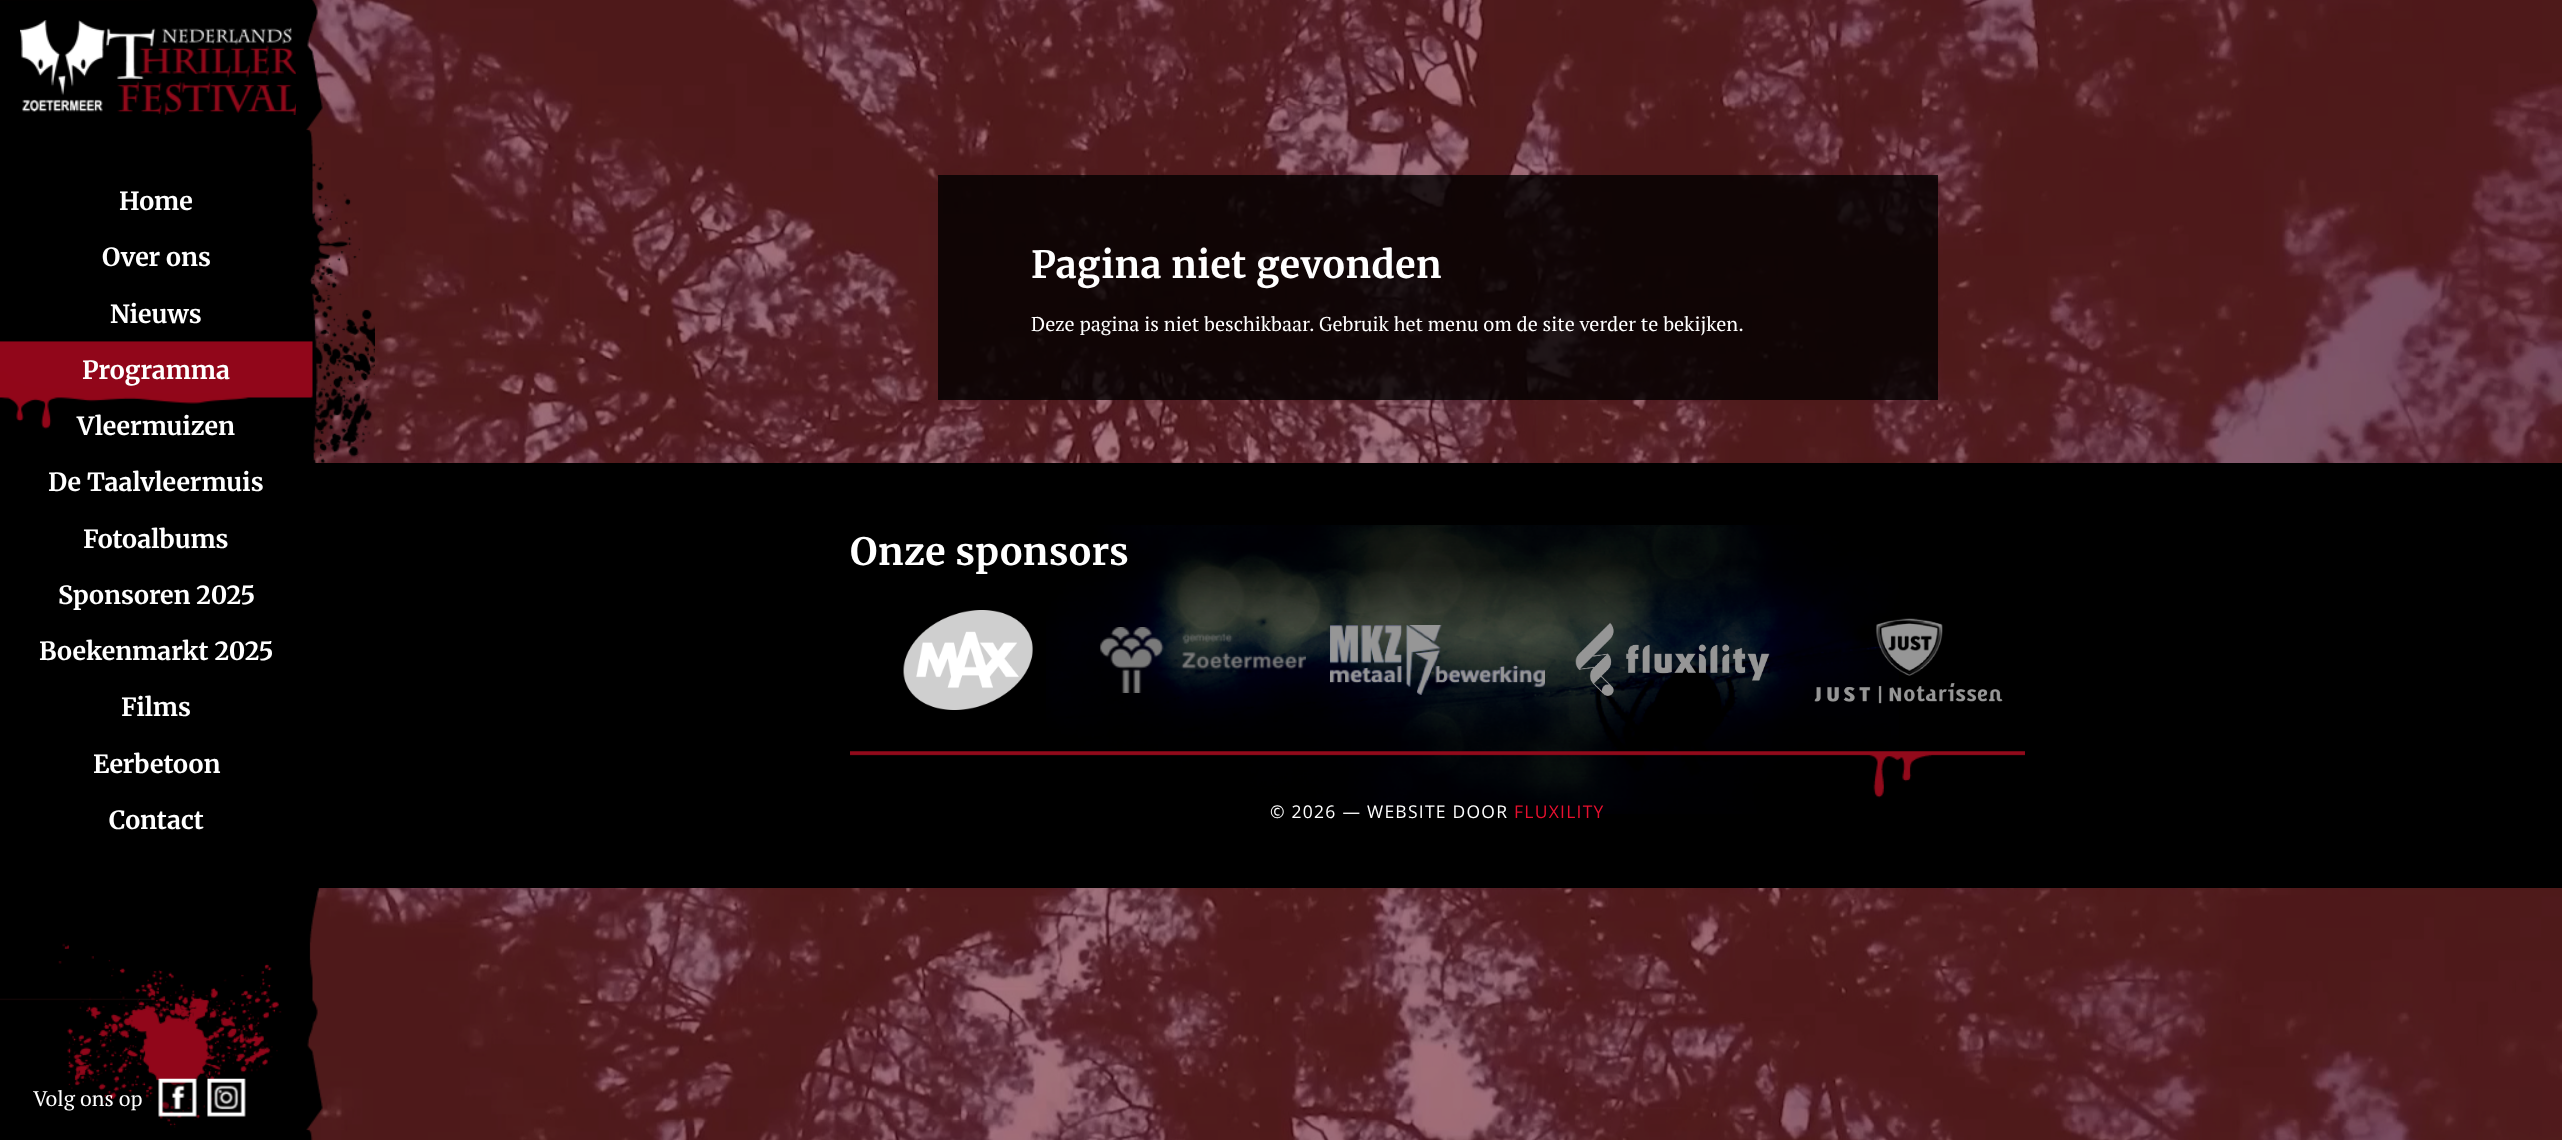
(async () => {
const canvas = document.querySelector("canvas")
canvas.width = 2562
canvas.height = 1140
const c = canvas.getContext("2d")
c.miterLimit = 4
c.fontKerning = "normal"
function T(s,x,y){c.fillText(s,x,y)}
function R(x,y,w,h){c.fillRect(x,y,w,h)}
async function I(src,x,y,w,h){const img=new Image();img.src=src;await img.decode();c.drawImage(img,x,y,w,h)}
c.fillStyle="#fff"
R(0,0,2562,1140)
await I("1.png",0,0,2562,1140)
c.fillStyle="#000"
R(301,463,2261,425)
await I("2.png",0,0,375,1140)
await I("3.png",20,20,276,95)
c.font="300 25px Merriweather"
c.fillStyle="#fff"
T("Home",119,210)
T("Over ons",102,266)
T("Nieuws",110,323)
await I("4.png",0,341,313,88)
T("Programma",82,379)
T("Vleermuizen",77,435)
T("De Taalvleermuis",48,491)
T("Fotoalbums",83,548)
T("Sponsoren 2025",58,604)
T("Boekenmarkt 2025",39,660)
T("Films",121,716)
T("Eerbetoon",93,773)
T("Contact",109,829)
await I("5.png",58,943,224,185)
c.font="21.25px PT Serif"
T("Volg ons op",33,1106)
await I("6.png",158,1078,39,39)
await I("7.png",207,1078,39,39)
c.fillStyle="#000000cc"
R(938,175,1000,225)
c.letterSpacing="0.5px"
c.font="300 37.5px Merriweather"
c.fillStyle="#fff"
T("Pagina niet gevonden",1031,278)
c.letterSpacing="0px"
c.font="20px PT Serif"
T("Deze pagina is niet beschikbaar. Gebruik het menu om de site verder te bekijken.",1031,331)
await I("8.png",1046,525,853,289)
c.letterSpacing="0.5px"
c.font="300 37.5px Merriweather"
T("Onze sponsors",850,565)
await I("9.png",850,751,1175,47)
await I("10.png",903,610,130,100)
await I("11.png",1100,627,206,66)
await I("12.png",1330,625,215,70)
await I("13.png",1575,622,195,74)
await I("14.png",1814,618,189,86)
c.letterSpacing="1.25px"
c.font="17.5px Open Sans"
T("© 2026 — WEBSITE DOOR",1270,818)
c.fillStyle="#e8102f"
T("FLUXILITY",1514,818)
})()
